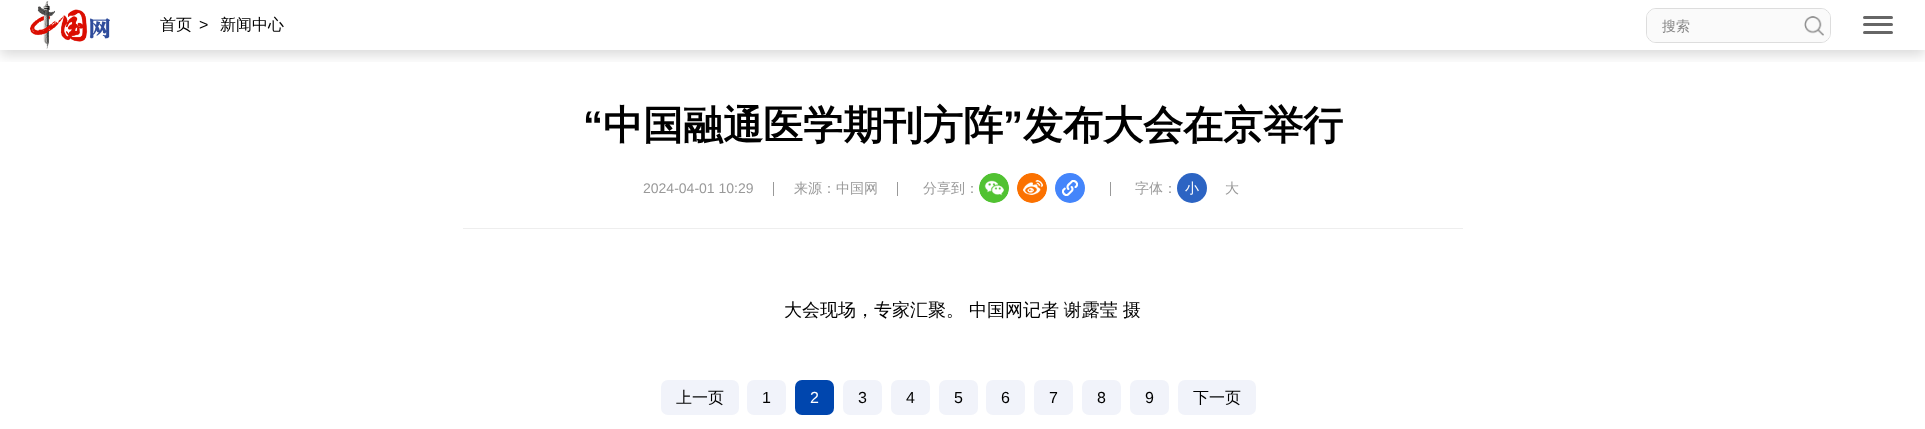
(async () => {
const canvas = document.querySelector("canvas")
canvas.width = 1925
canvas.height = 429
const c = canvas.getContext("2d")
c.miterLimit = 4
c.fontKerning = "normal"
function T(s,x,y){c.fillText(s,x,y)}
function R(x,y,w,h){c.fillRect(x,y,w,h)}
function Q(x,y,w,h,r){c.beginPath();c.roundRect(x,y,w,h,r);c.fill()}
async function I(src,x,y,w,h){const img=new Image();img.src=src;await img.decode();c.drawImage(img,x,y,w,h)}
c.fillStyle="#fff"
R(0,0,1925,429)
c.save()
c.beginPath()
c.rect(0,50,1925,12)
c.clip()
c.fillStyle="#00000026"
c.filter="blur(6.5px)"
c.beginPath()
c.rect(0,5,1925,50)
c.fill()
c.filter="none"
c.restore()
await I("1.png",30,1,80,48)
c.font="500 16px WenQuanYi Zen Hei"
c.fillStyle="#000"
T("首页",160,30)
c.font="16px Liberation Sans"
T(">",199,30)
c.font="500 16px WenQuanYi Zen Hei"
T("新闻中心",220,30)
c.beginPath()
c.roundRect(1646.5,8.5,184,34,9.5)
c.strokeStyle="#ddd"
c.stroke()
c.fillStyle="#fafafa"
c.beginPath()
c.roundRect(1647,9,150,33,[9,0,0,9])
c.fill()
c.font="500 14px WenQuanYi Zen Hei"
c.fillStyle="#888"
T("搜索",1662,31)
c.fillStyle="#fafafa"
c.beginPath()
c.roundRect(1797,9,33,33,[0,9,9,0])
c.fill()
await I("2.png",1804,16,20,20)
c.fillStyle="#666"
Q(1863,16,30,3,1.5)
Q(1863,23,30,3,1.5)
Q(1863,31,30,3,1.5)
c.font="bold 40px Liberation Sans"
c.fillStyle="#000"
T("“",583,139)
c.font="bold 40px WenQuanYi Zen Hei"
T("中国融通医学期刊方阵",603,139)
c.font="bold 40px Liberation Sans"
T("”",1003,139)
c.font="bold 40px WenQuanYi Zen Hei"
T("发布大会在京举行",1023,139)
c.fillStyle="#eee"
R(463,228,1000,1)
c.font="14px Liberation Sans"
c.fillStyle="#999"
T("2024-04-01 10:29",643,193)
R(773,182,1,14)
c.font="500 14px WenQuanYi Zen Hei"
T("来源：中国网",794,193)
R(897,182,1,14)
T("分享到：",923,193)
await I("3.png",979,173,30,30)
await I("4.png",1017,173,30,30)
await I("5.png",1055,173,30,30)
R(1110,182,1,14)
T("字体：",1135,193)
c.fillStyle="#2c64c3"
c.beginPath()
c.arc(1192,188,15,0,7)
c.fill()
c.fillStyle="#fff"
T("小",1185,193)
c.fillStyle="#999"
T("大",1225,193)
c.wordSpacing="-0.5px"
c.font="500 18px WenQuanYi Zen Hei"
c.fillStyle="#000"
T("大会现场，专家汇聚。 中国网记者 谢露莹 摄",784,316)
c.fillStyle="#f1f3fa"
Q(661,380,78,35,7)
c.wordSpacing="0px"
c.font="500 16px WenQuanYi Zen Hei"
c.fillStyle="#000"
T("上一页",676,403)
c.fillStyle="#f1f3fa"
Q(747,380,39,35,7)
c.font="16px Liberation Sans"
c.fillStyle="#000"
T("1",762,403)
c.fillStyle="#0046ae"
Q(795,380,39,35,7)
c.fillStyle="#fff"
T("2",810,403)
c.fillStyle="#f1f3fa"
Q(843,380,39,35,7)
c.fillStyle="#000"
T("3",858,403)
c.fillStyle="#f1f3fa"
Q(891,380,39,35,7)
c.fillStyle="#000"
T("4",906,403)
c.fillStyle="#f1f3fa"
Q(939,380,39,35,7)
c.fillStyle="#000"
T("5",954,403)
c.fillStyle="#f1f3fa"
Q(986,380,39,35,7)
c.fillStyle="#000"
T("6",1001,403)
c.fillStyle="#f1f3fa"
Q(1034,380,39,35,7)
c.fillStyle="#000"
T("7",1049,403)
c.fillStyle="#f1f3fa"
Q(1082,380,39,35,7)
c.fillStyle="#000"
T("8",1097,403)
c.fillStyle="#f1f3fa"
Q(1130,380,39,35,7)
c.fillStyle="#000"
T("9",1145,403)
c.fillStyle="#f1f3fa"
Q(1178,380,78,35,7)
c.font="500 16px WenQuanYi Zen Hei"
c.fillStyle="#000"
T("下一页",1193,403)
})()
